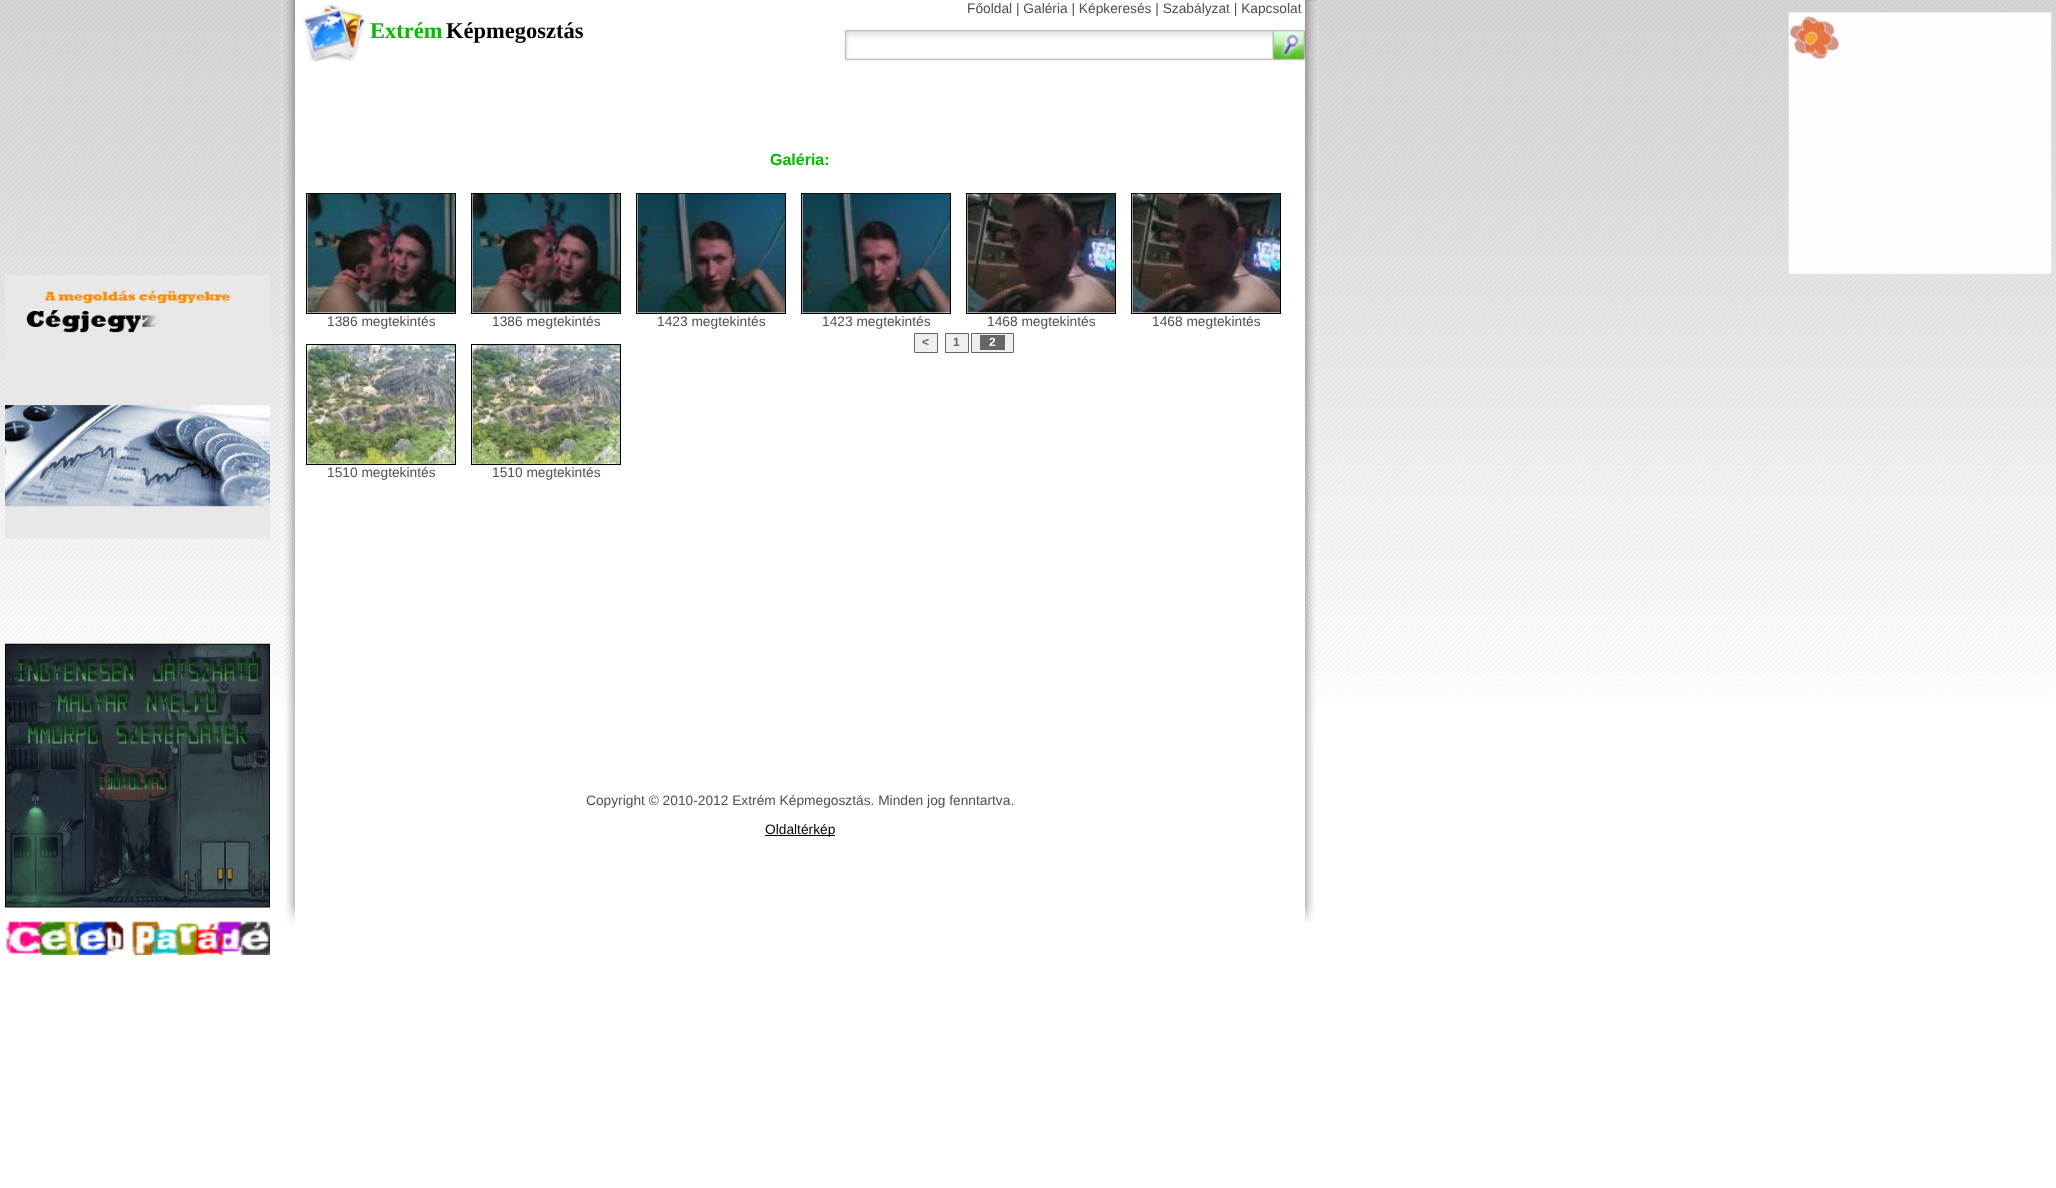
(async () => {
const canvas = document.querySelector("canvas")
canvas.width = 2056
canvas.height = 1188
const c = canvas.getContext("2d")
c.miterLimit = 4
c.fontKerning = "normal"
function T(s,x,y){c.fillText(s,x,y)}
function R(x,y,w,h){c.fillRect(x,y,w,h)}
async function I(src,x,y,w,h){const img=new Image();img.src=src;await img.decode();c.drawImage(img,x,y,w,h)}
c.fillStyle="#fff"
R(0,0,2056,1188)
await I("1.png",0,0,2056,697)
await I("2.png",281,0,14,750)
await I("3.png",281,0,14,710)
R(841,0,464,88)
c.font="13.75px Liberation Sans"
c.fillStyle="#4e4f4f"
T("Főoldal | Galéria | Képkeresés | Szabályzat | Kapcsolat",967,13)
await I("4.png",1305,0,13,750)
await I("5.png",1305,0,13,710)
c.fillStyle="#fff"
R(295,0,546,88)
await I("6.png",302,3,64,59)
c.font="bold 22.5px Liberation Serif"
c.fillStyle="#0b0"
T("Extrém",370,38)
c.fillStyle="#000"
T("Képmegosztás",446,38)
await I("7.png",841,29,14,32)
await I("8.png",841,25,10,36)
await I("9.png",855,29,418,32)
await I("10.png",1272,22,33,41)
c.fillStyle="#fff"
R(295,88,1010,609)
c.font="bold 16px Liberation Sans"
c.fillStyle="#0b0"
T("Galéria:",770,165)
c.strokeStyle="#000"
c.strokeRect(306.5,193.5,149,120)
await I("11.png",307,193,148,120)
c.font="13.75px Liberation Sans"
c.fillStyle="#4e4f4f"
T("1386 megtekintés",327,326)
c.strokeRect(471.5,193.5,149,120)
await I("12.png",472,193,148,120)
T("1386 megtekintés",492,326)
c.strokeRect(636.5,193.5,149,120)
await I("13.png",637,193,148,120)
T("1423 megtekintés",657,326)
c.strokeRect(801.5,193.5,149,120)
await I("14.png",802,193,148,120)
T("1423 megtekintés",822,326)
c.strokeRect(966.5,193.5,149,120)
await I("15.png",967,193,148,120)
T("1468 megtekintés",987,326)
c.strokeRect(1131.5,193.5,149,120)
await I("16.png",1132,193,148,120)
T("1468 megtekintés",1152,326)
c.fillStyle="#efefef"
c.beginPath()
c.rect(914.5,333.5,23,19)
c.fill()
c.strokeStyle="#666"
c.stroke()
c.font="bold 12px Liberation Sans"
c.fillStyle="#666"
T("<",922,346)
c.fillStyle="#efefef"
c.beginPath()
c.rect(945.5,333.5,23,19)
c.fill()
c.stroke()
c.fillStyle="#666"
T("1",953,346)
c.fillStyle="#efefef"
c.beginPath()
c.rect(971.5,333.5,42,19)
c.fill()
c.stroke()
c.fillStyle="#666"
R(980,335,25,15)
c.fillStyle="#fff"
T("2",989,346)
c.strokeStyle="#000"
c.strokeRect(306.5,344.5,149,120)
await I("17.png",307,345,148,119)
c.font="13.75px Liberation Sans"
c.fillStyle="#4e4f4f"
T("1510 megtekintés",327,477)
c.strokeRect(471.5,344.5,149,120)
await I("18.png",472,345,148,119)
T("1510 megtekintés",492,477)
await I("19.png",285,750,10,156)
await I("20.png",285,906,10,19)
T("Copyright © 2010-2012 Extrém Képmegosztás. Minden jog fenntartva.",586,805)
c.fillStyle="#000"
R(765,835,70,1)
T("Oldaltérkép",765,834)
await I("21.png",1305,750,10,157)
await I("22.png",1305,907,10,18)
await I("23.png",1788,12,264,262)
await I("24.png",5,275,265,264)
await I("25.png",5,643,265,265)
await I("26.png",6,921,264,34)
})()
